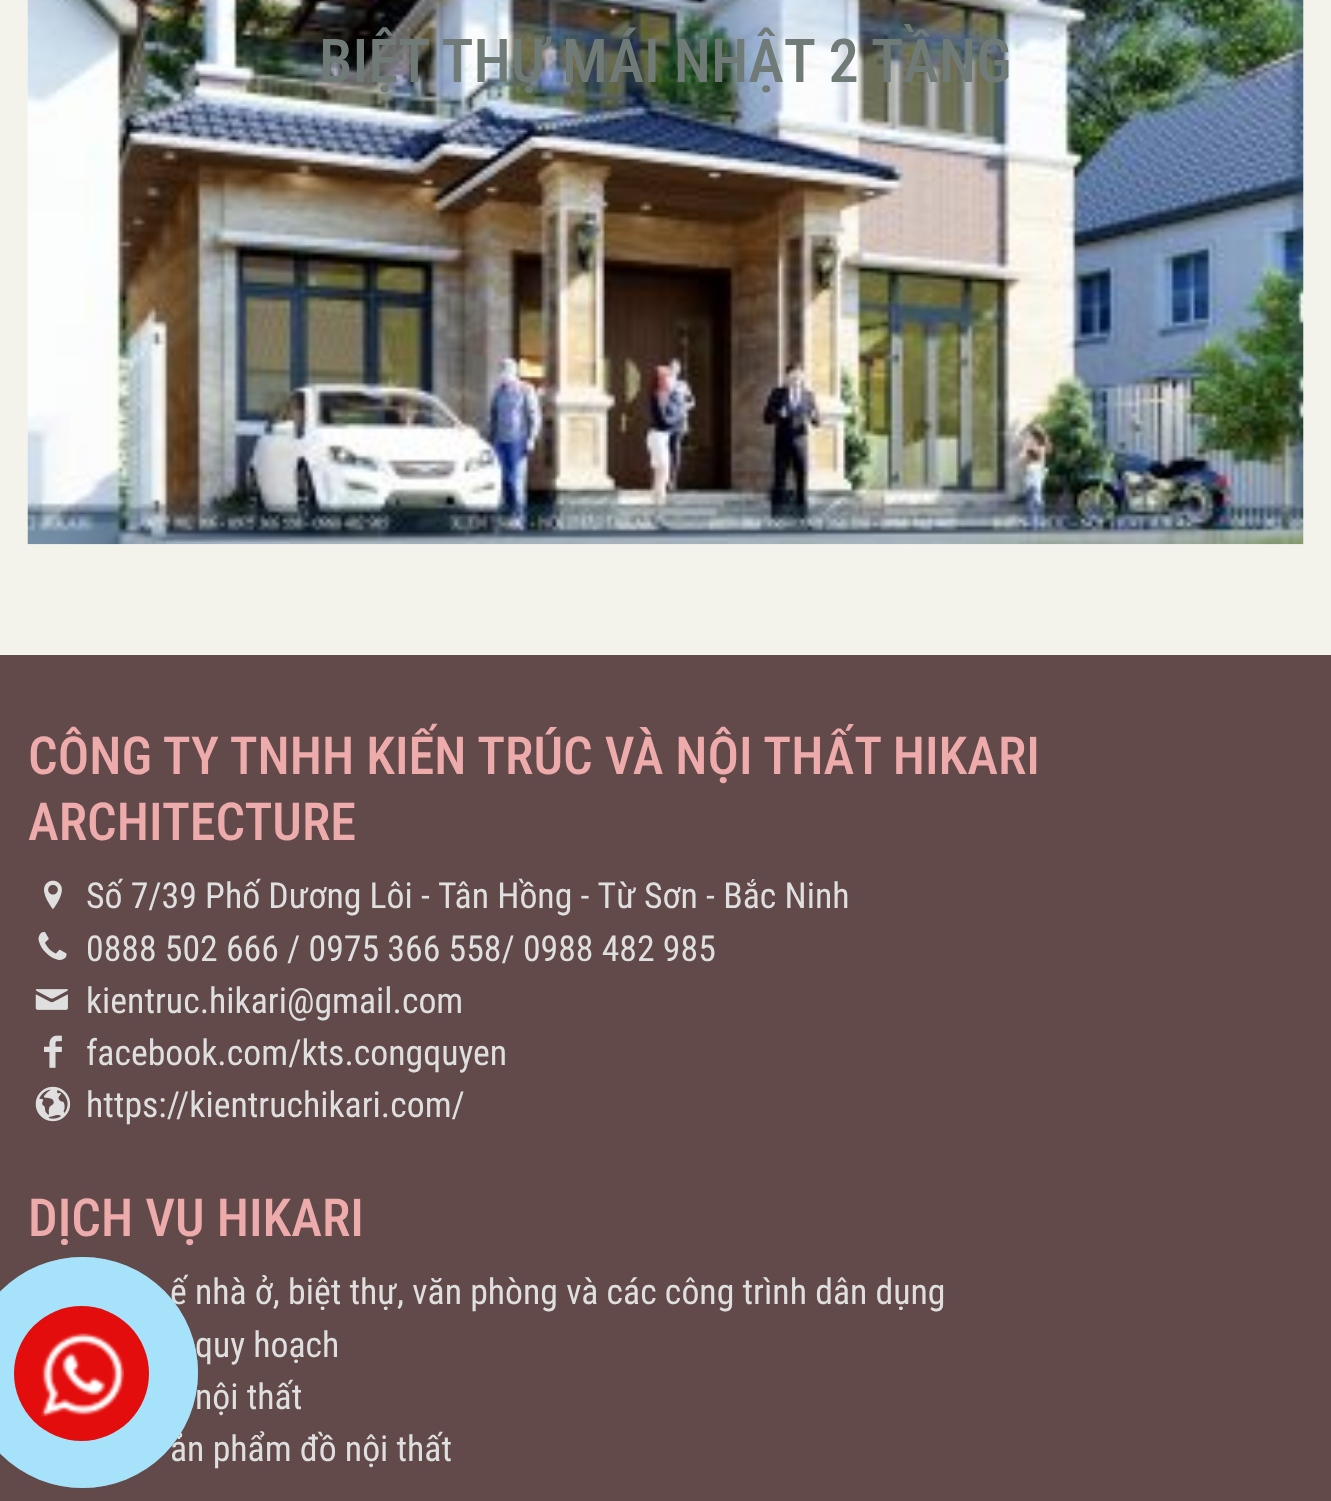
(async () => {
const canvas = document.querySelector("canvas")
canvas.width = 1331
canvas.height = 1501
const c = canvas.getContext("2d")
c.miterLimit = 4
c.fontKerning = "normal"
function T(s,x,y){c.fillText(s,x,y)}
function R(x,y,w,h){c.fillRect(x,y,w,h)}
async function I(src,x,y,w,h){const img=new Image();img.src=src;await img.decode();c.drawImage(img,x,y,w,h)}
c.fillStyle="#f3f3eb"
R(0,0,1331,1501)
await I("1.png",27,0,1277,545)
c.font="500 60.5px Roboto Condensed"
c.fillStyle="#707b78"
T("BIỆT THỰ MÁI NHẬT 2 TẦNG",319,82)
c.fillStyle="#624a4a"
R(0,655,1331,846)
c.font="500 52.25px Roboto Condensed"
c.fillStyle="#edabab"
T("CÔNG TY TNHH KIẾN TRÚC VÀ NỘI THẤT HIKARI",28,774)
T("ARCHITECTURE",28,840)
await I("2.png",44,880,18,30)
c.font="35.75px Roboto Condensed"
c.fillStyle="#dfdfdf"
T("Số 7/39 Phố Dương Lôi - Tân Hồng - Từ Sơn - Bắc Ninh",86,908)
await I("3.png",38,931,29,29)
T("0888 502 666 / 0975 366 558/ 0988 482 985",86,961)
await I("4.png",35,989,33,21)
T("kientruc.hikari@gmail.com",86,1013)
await I("5.png",44,1035,18,33)
T("facebook.com/kts.congquyen",86,1065)
await I("6.png",35,1086,36,36)
T("https://kientruchikari.com/",86,1117)
c.font="500 52.25px Roboto Condensed"
c.fillStyle="#edabab"
T("DỊCH VỤ HIKARI",28,1236)
c.font="35.75px Roboto Condensed"
c.fillStyle="#dfdfdf"
T("ế nhà ở, biệt thự, văn phòng và các công trình dân dụng",170,1304)
T("quy hoạch",195,1357)
T("nội thất",195,1409)
T("ản phẩm đồ nội thất",170,1461)
c.beginPath()
c.arc(82.5,1372.5,112.5,0,7)
c.strokeStyle="#bfebfc80"
c.lineWidth=6
c.stroke()
c.fillStyle="#a6e3fa"
c.beginPath()
c.arc(82.5,1372.5,115.5,0,7)
c.fill()
c.fillStyle="#e40d0d"
c.beginPath()
c.arc(81.5,1373.5,67.5,0,7)
c.fill()
await I("7.png",41,1333,83,84)
})()
